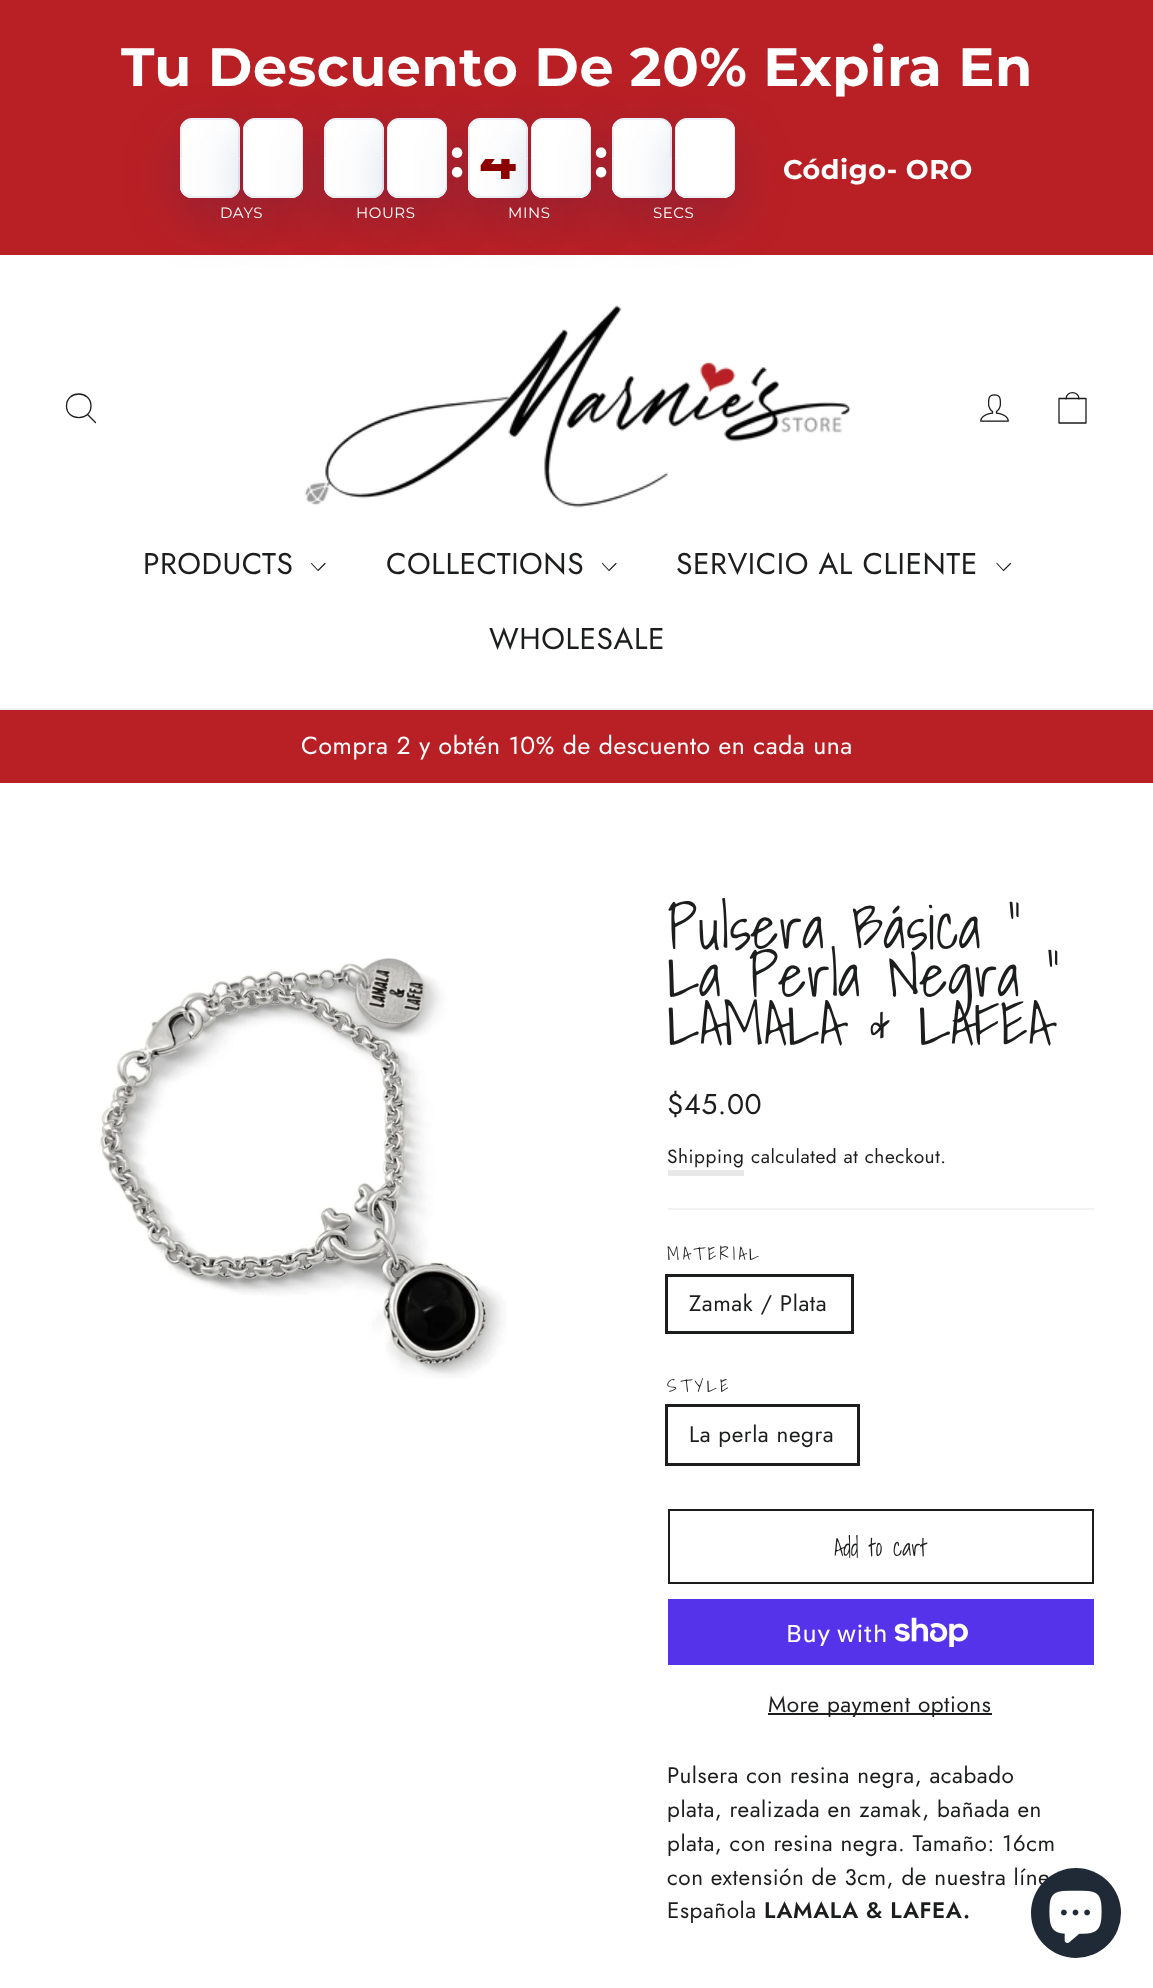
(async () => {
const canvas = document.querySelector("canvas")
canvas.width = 1153
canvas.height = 1988
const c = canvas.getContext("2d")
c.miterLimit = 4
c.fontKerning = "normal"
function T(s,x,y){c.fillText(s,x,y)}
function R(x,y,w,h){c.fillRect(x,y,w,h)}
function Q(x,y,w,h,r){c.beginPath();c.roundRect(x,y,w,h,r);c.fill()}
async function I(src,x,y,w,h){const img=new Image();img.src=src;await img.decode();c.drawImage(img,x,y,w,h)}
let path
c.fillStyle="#fff"
R(0,0,1153,1988)
c.fillStyle="#b92025"
R(0,0,1153,255)
c.fillStyle="#00266f33"
c.filter="blur(27px)"
c.beginPath()
c.roundRect(180,137,60,79,12)
c.fill()
c.filter="none"
c.fillStyle="#fff"
Q(180,119,60,79,12)
c.beginPath()
c.roundRect(180,119,60,39,[12,12,0,0])
c.fill()
c.fillStyle="#ecf0f8"
path = new Path2D("M192 118h36c7 0 12 6 12 12v28h-60v-28c0-6 5-12 12-12zm0 2h36c6 0 10 5 10 10v28h-56v-28c0-5 4-10 10-10z")
c.fill(path,"evenodd")
c.fillStyle="#fff"
c.beginPath()
c.roundRect(180,159,60,39,[0,0,12,12])
c.fill()
c.fillStyle="#ecf0f8"
path = new Path2D("M180 159h60v27c0 7-5 12-12 12h-36c-7 0-12-5-12-12zm2 0h56v27c0 6-4 10-10 10h-36c-6 0-10-4-10-10z")
c.fill(path,"evenodd")
c.fillStyle="#00266f33"
c.filter="blur(27px)"
c.beginPath()
c.roundRect(243,137,60,79,12)
c.fill()
c.filter="none"
c.fillStyle="#fff"
Q(243,119,60,79,12)
c.beginPath()
c.roundRect(243,119,60,39,[12,12,0,0])
c.fill()
c.fillStyle="#ecf0f8"
path = new Path2D("M255 118h36c7 0 12 6 12 12v28h-60v-28c0-6 5-12 12-12zm0 2h36c6 0 11 5 11 10v28h-58v-28c0-5 5-10 11-10z")
c.fill(path,"evenodd")
c.fillStyle="#fff"
c.beginPath()
c.roundRect(243,159,60,39,[0,0,12,12])
c.fill()
c.fillStyle="#ecf0f8"
path = new Path2D("M243 159h60v27c0 7-5 12-12 12h-36c-7 0-12-5-12-12zm1 0h58v27c0 6-5 10-11 10h-36c-6 0-11-4-11-10z")
c.fill(path,"evenodd")
c.fillStyle="#00266f33"
c.filter="blur(27px)"
c.beginPath()
c.roundRect(324,137,60,79,12)
c.fill()
c.filter="none"
c.fillStyle="#fff"
Q(324,119,60,79,12)
c.beginPath()
c.roundRect(324,119,60,39,[12,12,0,0])
c.fill()
c.fillStyle="#ecf0f8"
path = new Path2D("M336 118h36c7 0 12 6 12 12v28h-60v-28c0-6 5-12 12-12zm0 2h36c6 0 10 5 10 10v28h-56v-28c0-5 4-10 10-10z")
c.fill(path,"evenodd")
c.fillStyle="#fff"
c.beginPath()
c.roundRect(324,159,60,39,[0,0,12,12])
c.fill()
c.fillStyle="#ecf0f8"
path = new Path2D("M324 159h60v27c0 7-5 12-12 12h-36c-7 0-12-5-12-12zm2 0h56v27c0 6-4 10-10 10h-36c-6 0-10-4-10-10z")
c.fill(path,"evenodd")
c.fillStyle="#00266f33"
c.filter="blur(27px)"
c.beginPath()
c.roundRect(387,137,60,79,12)
c.fill()
c.filter="none"
c.fillStyle="#fff"
Q(387,119,60,79,12)
c.beginPath()
c.roundRect(387,119,60,39,[12,12,0,0])
c.fill()
c.fillStyle="#ecf0f8"
path = new Path2D("M399 118h36c7 0 12 6 12 12v28h-60v-28c0-6 5-12 12-12zm0 2h36c6 0 11 5 11 10v28h-58v-28c0-5 5-10 11-10z")
c.fill(path,"evenodd")
c.fillStyle="#fff"
c.beginPath()
c.roundRect(387,159,60,39,[0,0,12,12])
c.fill()
c.fillStyle="#ecf0f8"
path = new Path2D("M387 159h60v27c0 7-5 12-12 12h-36c-7 0-12-5-12-12zm1 0h58v27c0 6-5 10-11 10h-36c-6 0-11-4-11-10z")
c.fill(path,"evenodd")
c.fillStyle="#00266f33"
c.filter="blur(27px)"
c.beginPath()
c.roundRect(468,137,60,79,12)
c.fill()
c.filter="none"
c.fillStyle="#fff"
Q(468,119,60,79,12)
c.beginPath()
c.roundRect(468,119,60,39,[12,12,0,0])
c.fill()
c.fillStyle="#ecf0f8"
path = new Path2D("M480 118h36c7 0 12 6 12 12v28h-60v-28c0-6 5-12 12-12zm0 2h36c6 0 10 5 10 10v28h-56v-28c0-5 4-10 10-10z")
c.fill(path,"evenodd")
c.fillStyle="#fff"
c.beginPath()
c.roundRect(468,159,60,39,[0,0,12,12])
c.fill()
c.fillStyle="#ecf0f8"
path = new Path2D("M468 159h60v27c0 7-5 12-12 12h-36c-7 0-12-5-12-12zm2 0h56v27c0 6-4 10-10 10h-36c-6 0-10-4-10-10z")
c.fill(path,"evenodd")
c.fillStyle="#00266f33"
c.filter="blur(27px)"
c.beginPath()
c.roundRect(531,137,60,79,12)
c.fill()
c.filter="none"
c.fillStyle="#fff"
Q(531,119,60,79,12)
c.beginPath()
c.roundRect(531,119,60,39,[12,12,0,0])
c.fill()
c.fillStyle="#ecf0f8"
path = new Path2D("M543 118h36c7 0 12 6 12 12v28h-60v-28c0-6 5-12 12-12zm0 2h36c6 0 11 5 11 10v28h-58v-28c0-5 5-10 11-10z")
c.fill(path,"evenodd")
path = new Path2D("M531 159h60v27c0 7-5 12-12 12h-36c-7 0-12-5-12-12zm1 0h58v27c0 6-5 10-11 10h-36c-6 0-11-4-11-10z")
c.fill(path,"evenodd")
c.fillStyle="#fff"
path = new Path2D("M543 198h36c7 0 12-5 12-12v-27h-60v27c0 7 6 12 12 12z")
c.fill(path)
c.fillStyle="#ecf0f8"
path = new Path2D("M543 198h36c7 0 12-5 12-12v-27h-60v27c0 7 6 12 12 12zm0-2h36c6 0 11-4 11-10v-27h-57v27c0 6 4 10 10 10z")
c.fill(path,"evenodd")
c.fillStyle="#00266f33"
c.filter="blur(27px)"
c.beginPath()
c.roundRect(612,137,60,79,12)
c.fill()
c.filter="none"
c.fillStyle="#fff"
Q(612,119,60,79,12)
c.beginPath()
c.roundRect(612,119,60,39,[12,12,0,0])
c.fill()
c.fillStyle="#ecf0f8"
path = new Path2D("M624 118h36c7 0 12 6 12 12v28h-60v-28c0-6 5-12 12-12zm0 2h36c6 0 10 5 10 10v28h-56v-28c0-5 4-10 10-10z")
c.fill(path,"evenodd")
path = new Path2D("M612 159h60v27c0 7-5 12-12 12h-36c-7 0-12-5-12-12zm2 0h56v27c0 6-4 10-10 10h-36c-6 0-10-4-10-10z")
c.fill(path,"evenodd")
c.fillStyle="#fff"
path = new Path2D("M624 198h36c7 0 12-5 12-12v-27h-60v27c0 7 6 12 12 12z")
c.fill(path)
c.fillStyle="#ecf0f8"
path = new Path2D("M624 198h36c7 0 12-5 12-12v-27h-60v27c0 7 6 12 12 12zm0-2h36c6 0 11-4 11-10v-27h-57v27c0 6 4 10 10 10z")
c.fill(path,"evenodd")
c.fillStyle="#00266f33"
c.filter="blur(27px)"
c.beginPath()
c.roundRect(675,137,60,79,12)
c.fill()
c.filter="none"
c.letterSpacing="0.55px"
c.font="bold 54px Montserrat"
c.fillStyle="#fff"
T("Tu Descuento De 20% Expira En",121,86)
c.font="15px Montserrat"
T("DAYS",220,218)
T("HOURS",356,218)
c.font="bold 54px Montserrat"
T(":",450,177)
c.save()
c.beginPath()
c.roundRect(470,159,57,38,[0,0,11,11])
c.clip()
c.fillStyle="#8d0000"
T("4",479,179)
c.restore()
c.font="15px Montserrat"
T("MINS",508,218)
c.font="bold 54px Montserrat"
T(":",594,177)
Q(675,119,60,79,12)
c.beginPath()
c.roundRect(675,119,60,39,[12,12,0,0])
c.fill()
c.fillStyle="#ecf0f8"
path = new Path2D("M687 118h36c7 0 12 6 12 12v28h-60v-28c0-6 5-12 12-12zm0 2h36c6 0 11 5 11 10v28h-58v-28c0-5 5-10 11-10z")
c.fill(path,"evenodd")
path = new Path2D("M675 159h60v27c0 7-5 12-12 12h-36c-7 0-12-5-12-12zm1 0h58v27c0 6-5 10-11 10h-36c-6 0-11-4-11-10z")
c.fill(path,"evenodd")
c.fillStyle="#fff"
path = new Path2D("M687 198h36c7 0 12-5 12-12v-27h-60v27c0 7 6 12 12 12z")
c.fill(path)
c.fillStyle="#ecf0f8"
path = new Path2D("M687 198h36c7 0 12-5 12-12v-27h-60v27c0 7 6 12 12 12zm0-2h36c6 0 11-4 11-10v-27h-57v27c0 6 4 10 10 10z")
c.fill(path,"evenodd")
c.font="15px Montserrat"
c.fillStyle="#fff"
T("SECS",653,218)
c.font="bold 27px Montserrat"
T("Código- ORO",783,179)
c.fillStyle="#f0f1f3"
R(0,708,1153,2)
path = new Path2D("M91 406c0 15.5-24.5 15.5-24.5 0c0-16 24.5-16 24.5 0zm4.5 16.5l-8-8")
c.strokeStyle="#1c1d1d"
c.lineWidth=1.3
c.lineCap="round"
c.lineJoin="round"
c.stroke(path)
await I("1.png",304,305,547,203)
await I("2.png",980,394,29,28)
path = new Path2D("M1059 398.5h27v24.5h-27zm7 .5c0-8.5 13-8.5 13 0")
c.stroke(path)
c.font="30px Jost"
c.fillStyle="#1c1d1d"
T("PRODUCTS",143,574)
path = new Path2D("M311.5 563.5l6.5 7l7-7")
c.lineWidth=1.1
c.stroke(path)
T("COLLECTIONS",386,574)
path = new Path2D("M602.5 563.5l6.5 7l7-7")
c.stroke(path)
T("SERVICIO AL CLIENTE",676,574)
path = new Path2D("M997 563.5l6.5 7l7-7")
c.stroke(path)
T("WHOLESALE",489,649)
c.fillStyle="#b92025"
R(0,710,1153,73)
c.font="24.75px Jost"
c.fillStyle="#fff"
T("Compra 2 y obtén 10% de descuento en cada una",301,754)
await I("3.png",99,958,408,421)
c.letterSpacing="0px"
c.font="60px Shadows Into Light"
c.fillStyle="#1c1d1d"
T("Pulsera Básica \"",667,949)
T("La Perla Negra \"",667,997)
T("LAMALA & LAFEA",667,1045)
c.letterSpacing="0.55px"
c.font="28.5px Jost"
T("$45.00",667,1114)
c.font="19.1px Jost"
T("Shipping",667,1163)
c.fillStyle="#e8e8e8"
R(668,1170,76,6)
c.fillStyle="#1c1d1d"
T("calculated at checkout.",751,1163)
c.fillStyle="#f0f1f3"
R(668,1208,426,2)
c.letterSpacing="3.5px"
c.font="18px Shadows Into Light"
c.fillStyle="#1c1d1d"
T("MATERIAL",667,1260)
c.lineWidth=3
c.lineJoin="miter"
c.strokeRect(666.5,1275.5,186,57)
c.letterSpacing="0.55px"
c.font="22.5px Jost"
T("Zamak / Plata",689,1311)
c.letterSpacing="3.5px"
c.font="18px Shadows Into Light"
T("STYLE",667,1392)
c.strokeRect(666.5,1405.5,192,59)
c.letterSpacing="0.55px"
c.font="22.5px Jost"
T("La perla negra",689,1442)
c.lineWidth=2
c.strokeRect(669,1510,424,73)
c.letterSpacing="0px"
c.font="24px Shadows Into Light"
T("Add to cart",834,1556)
c.fillStyle="#5433eb"
R(668,1599,426,66)
c.letterSpacing="0.55px"
c.font="24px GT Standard"
c.fillStyle="#fff"
T("Buy with",786,1642)
await I("4.png",894,1617,74,30)
c.fillStyle="#1c1d1d"
R(768,1713,224,2)
c.font="22.5px Jost"
T("More payment options",768,1712)
T("Pulsera con resina negra, acabado",667,1783)
T("plata, realizada en zamak, bañada en",667,1817)
T("plata, con resina negra. Tamaño: 16cm",667,1851)
T("con extensión de 3cm, de nuestra líne",667,1885)
T("Española",667,1918)
c.font="600 22.5px Jost"
T("LAMALA & LAFEA.",764,1918)
c.fillStyle="#202a36"
c.beginPath()
c.arc(1076,1913,45,0,7)
c.fill()
await I("5.png",1049,1890,53,53)
})()
